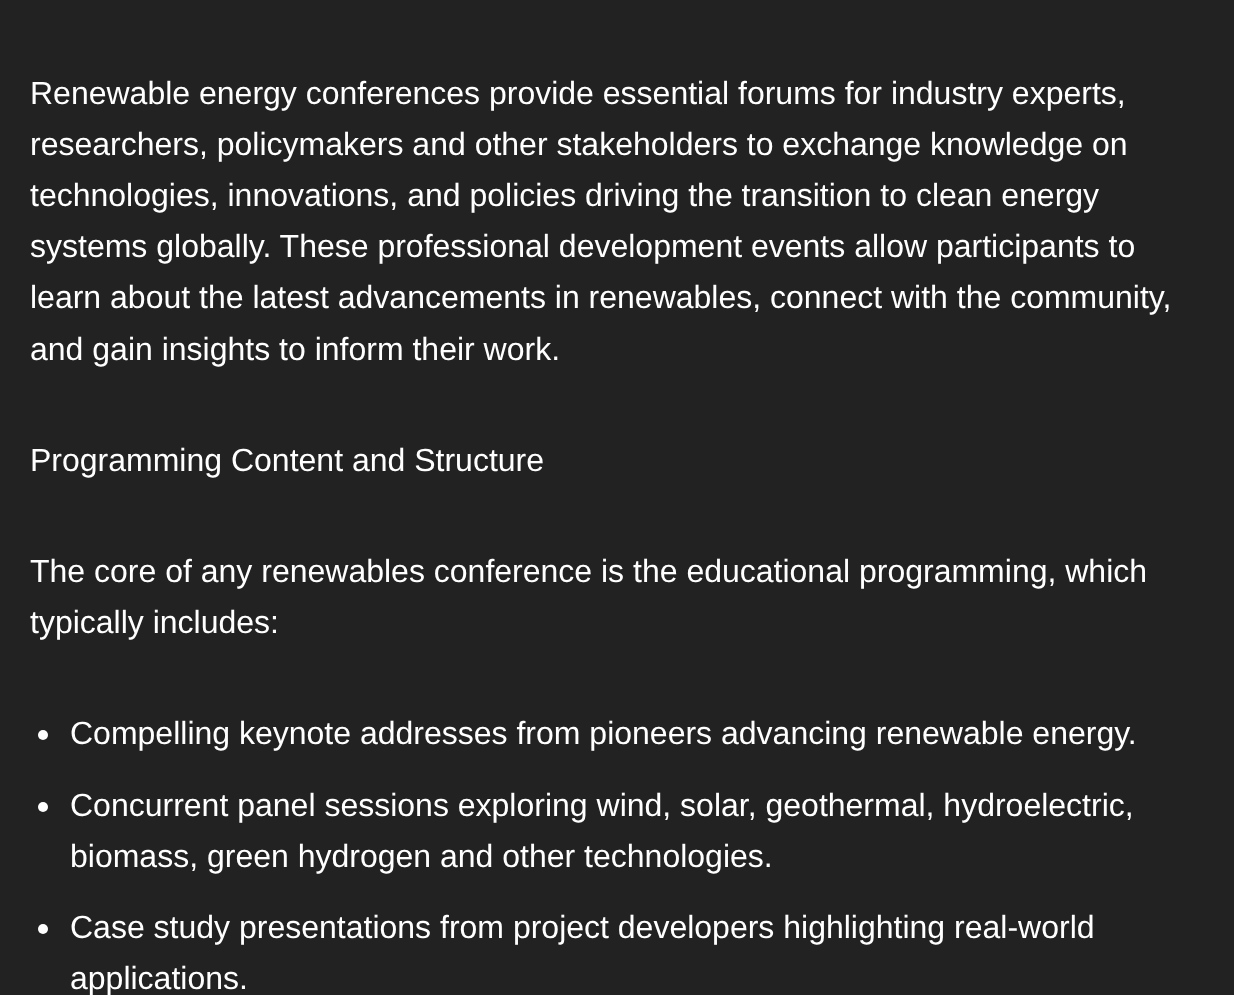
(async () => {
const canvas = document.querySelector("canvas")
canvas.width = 1234
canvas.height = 995
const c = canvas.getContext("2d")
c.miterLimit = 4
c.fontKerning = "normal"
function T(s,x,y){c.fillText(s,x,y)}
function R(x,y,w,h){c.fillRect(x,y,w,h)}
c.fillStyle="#232222"
R(0,0,1234,995)
c.font="32px Liberation Sans"
c.fillStyle="#fff"
T("Renewable energy conferences provide essential forums for industry experts,",30,104)
T("researchers, policymakers and other stakeholders to exchange knowledge on",30,155)
T("technologies, innovations, and policies driving the transition to clean energy",30,206)
T("systems globally. These professional development events allow participants to",30,257)
T("learn about the latest advancements in renewables, connect with the community,",30,308)
T("and gain insights to inform their work.",30,360)
T("Programming Content and Structure",30,471)
T("The core of any renewables conference is the educational programming, which",30,582)
T("typically includes:",30,633)
c.beginPath()
c.arc(43,735,5,0,7)
c.fill()
T("Compelling keynote addresses from pioneers advancing renewable energy.",70,744)
c.beginPath()
c.arc(43,807,5,0,7)
c.fill()
T("Concurrent panel sessions exploring wind, solar, geothermal, hydroelectric,",70,816)
T("biomass, green hydrogen and other technologies.",70,867)
c.beginPath()
c.arc(43,929,5,0,7)
c.fill()
T("Case study presentations from project developers highlighting real-world",70,938)
T("applications.",70,989)
})()
